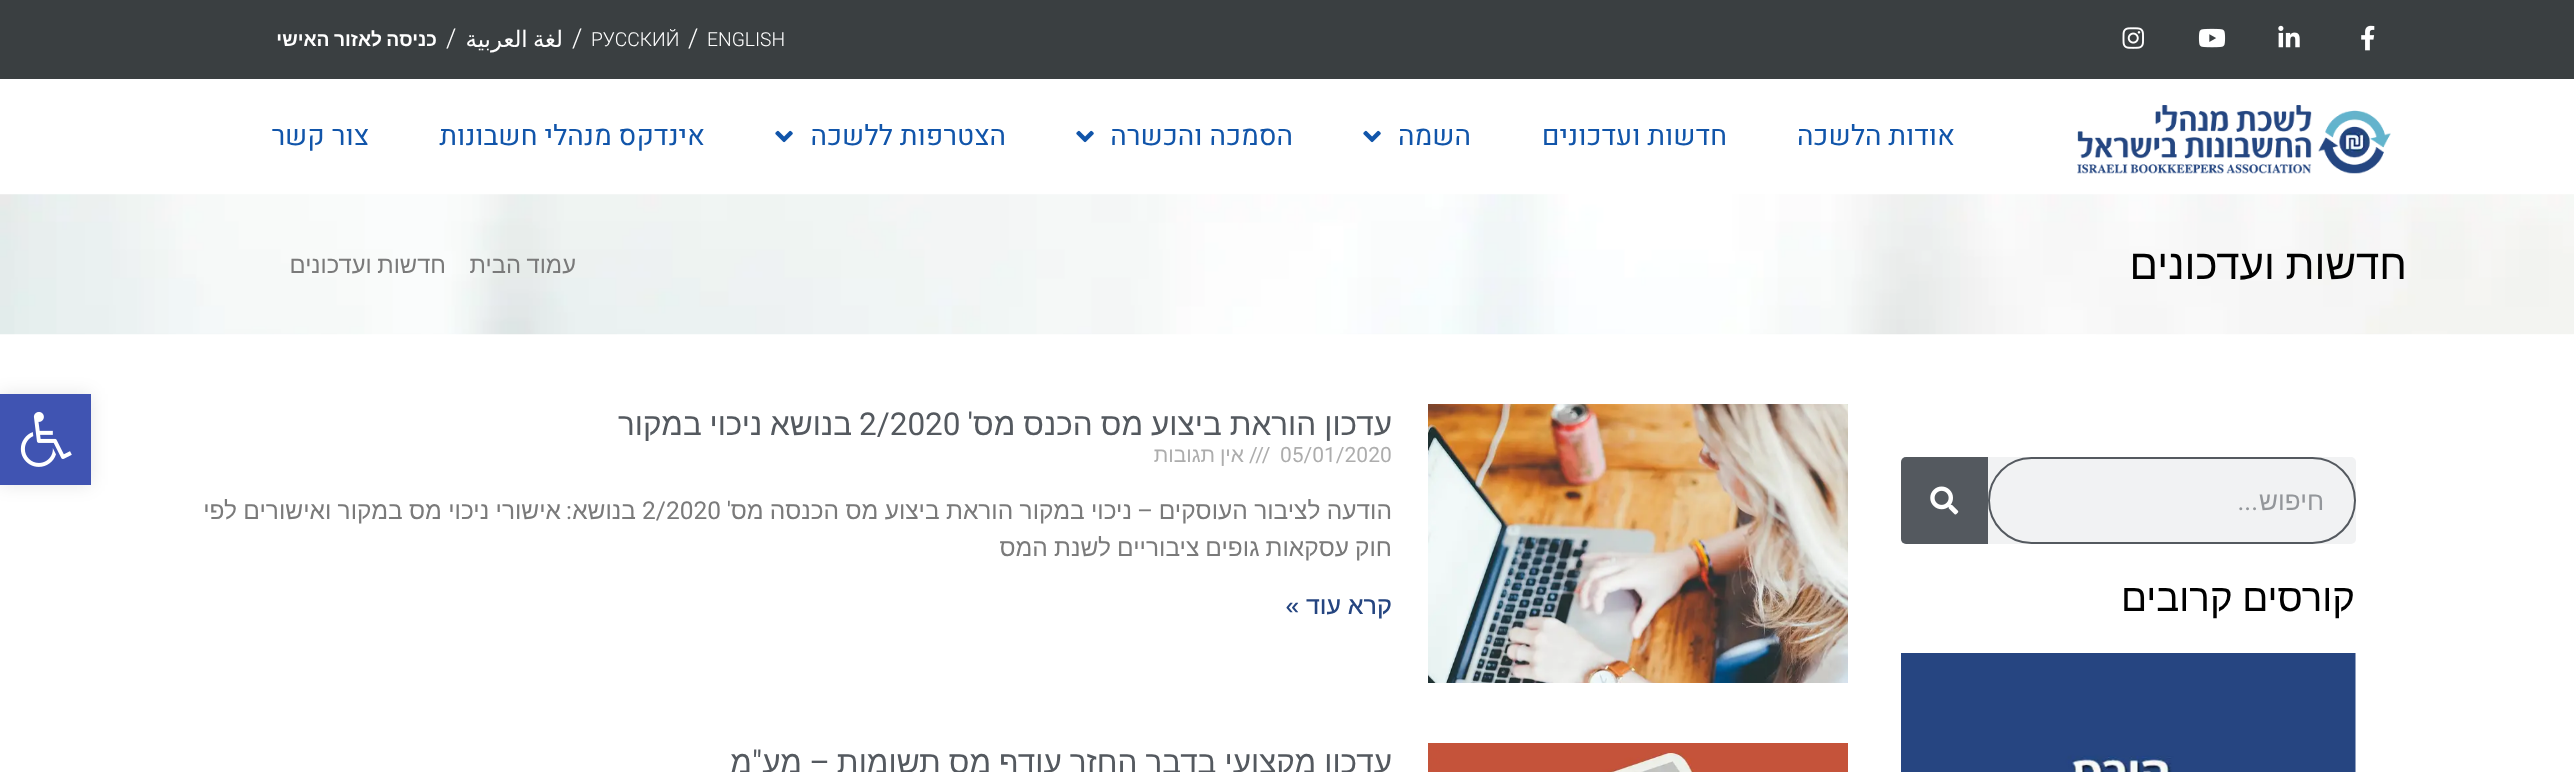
(async () => {
const canvas = document.querySelector("canvas")
canvas.width = 2574
canvas.height = 772
const c = canvas.getContext("2d")
c.miterLimit = 4
c.fontKerning = "normal"
function T(s,x,y){c.fillText(s,x,y)}
function R(x,y,w,h){c.fillRect(x,y,w,h)}
function Q(x,y,w,h,r){c.beginPath();c.roundRect(x,y,w,h,r);c.fill()}
async function I(src,x,y,w,h){const img=new Image();img.src=src;await img.decode();c.drawImage(img,x,y,w,h)}
c.fillStyle="#fff"
R(0,0,2574,772)
c.fillStyle="#3a3f41"
R(0,0,2574,79)
await I("1.png",2361,25,14,26)
await I("2.png",2278,25,22,23)
await I("3.png",2198,28,28,20)
await I("4.png",2122,27,22,22)
c.font="300 19.25px Roboto"
c.fillStyle="#fff"
T("ENGLISH",707,46)
c.font="300 26px Roboto"
T("/",688,47)
c.font="300 19.25px Roboto"
T("РУССКИЙ",591,46)
c.font="300 26px Roboto"
T("/",572,47)
c.wordSpacing="-2px"
c.direction="rtl"
c.font="22.75px DejaVu Sans"
T("لغة العربية",563,47)
c.wordSpacing="0px"
c.direction="ltr"
c.font="300 26px Roboto"
T("/",446,47)
c.wordSpacing="-1px"
c.direction="rtl"
c.font="bold 19.25px Liberation Sans"
T("כניסה לאזור האישי",437,46)
await I("5.png",2077,105,314,69)
c.wordSpacing="0px"
c.font="28px Heebo"
c.fillStyle="#15a"
T("אודות הלשכה",1955,145)
T("חדשות ועדכונים",1727,145)
T("השמה",1471,145)
await I("6.png",1363,130,18,13)
T("הסמכה והכשרה",1293,145)
await I("6.png",1076,130,18,13)
T("הצטרפות ללשכה",1006,145)
await I("6.png",775,130,18,13)
T("אינדקס מנהלי חשבונות",705,145)
T("צור קשר",369,145)
await I("7.png",0,194,2574,141)
c.wordSpacing="-1px"
c.font="42px Liberation Sans"
c.fillStyle="#000"
T("חדשות ועדכונים",2407,279)
c.font="23.75px Liberation Sans"
c.fillStyle="#7a7a7a"
T("עמוד הבית",576,273)
T("חדשות ועדכונים",446,273)
c.fillStyle="#f1f2f3"
Q(1901,457,455,87,5)
c.beginPath()
c.roundRect(1989,458,366,85,42.5)
c.strokeStyle="#54595f"
c.lineWidth=2
c.stroke()
c.wordSpacing="0px"
c.font="26px Liberation Sans"
c.fillStyle="#93969a"
T("חיפוש",2324,510)
c.font="26px Roboto"
T("...",2258,510)
c.fillStyle="#54595f"
c.beginPath()
c.roundRect(1901,457,87,87,[5,0,0,5])
c.fill()
await I("8.png",1930,486,29,29)
c.wordSpacing="-1px"
c.font="38.5px Liberation Sans"
c.fillStyle="#000"
T("קורסים קרובים",2355,611)
await I("9.png",1901,653,455,119)
await I("10.png",1428,404,420,279)
c.wordSpacing="-0.75px"
c.font="31.5px Liberation Sans"
c.fillStyle="#54595f"
T("עדכון הוראת ביצוע מס הכנס מס",1392,435)
c.wordSpacing="0px"
c.font="31.5px Roboto"
T("'",973,435)
c.direction="ltr"
T("2/2020",859,435)
c.wordSpacing="-1px"
c.direction="rtl"
c.font="31.5px Liberation Sans"
T("בנושא ניכוי במקור",852,435)
c.wordSpacing="0px"
c.direction="ltr"
c.font="21px Roboto"
c.fillStyle="#adadad"
T("05/01/2020",1280,462)
T("///",1249,462)
c.wordSpacing="-1px"
c.direction="rtl"
c.font="21px Liberation Sans"
T("אין תגובות",1244,462)
c.wordSpacing="-0.5px"
c.font="24.5px Liberation Sans"
c.fillStyle="#7a7a7a"
T("הודעה לציבור העוסקים",1392,519)
c.wordSpacing="0px"
c.font="24.5px Roboto"
T("–",1153,519)
c.wordSpacing="-0.5px"
c.font="24.5px Liberation Sans"
T("ניכוי במקור הוראת ביצוע מס הכנסה מס",1132,519)
c.wordSpacing="0px"
c.font="24.5px Roboto"
T("'",731,519)
c.direction="ltr"
T("2/2020",642,519)
c.direction="rtl"
c.font="24.5px Liberation Sans"
T("בנושא",636,519)
c.font="24.5px Roboto"
T(":",572,519)
c.wordSpacing="-0.5px"
c.font="24.5px Liberation Sans"
T("אישורי ניכוי מס במקור ואישורים לפי",561,519)
c.wordSpacing="-0.75px"
T("חוק עסקאות גופים ציבוריים לשנת המס",1392,556)
c.wordSpacing="0px"
c.font="500 24.5px Arimo"
c.fillStyle="#254580"
T("קרא עוד »",1392,614)
await I("11.png",1428,743,420,29)
c.wordSpacing="-0.75px"
c.font="31.5px Liberation Sans"
c.fillStyle="#54595f"
T("עדכון מקצועי בדבר החזר עודף מס תשומות",1392,773)
c.wordSpacing="0px"
c.font="31.5px Roboto"
T("–",830,773)
c.font="31.5px Liberation Sans"
T("מע",802,773)
c.font="31.5px Roboto"
T("\"",762,773)
c.font="31.5px Liberation Sans"
T("מ",752,773)
c.fillStyle="#0000001a"
c.filter="blur(9px)"
c.beginPath()
c.rect(0,394,91,91)
c.fill()
c.filter="none"
c.fillStyle="#4054b2"
R(0,394,91,91)
await I("12.png",20,411,52,56)
})()
